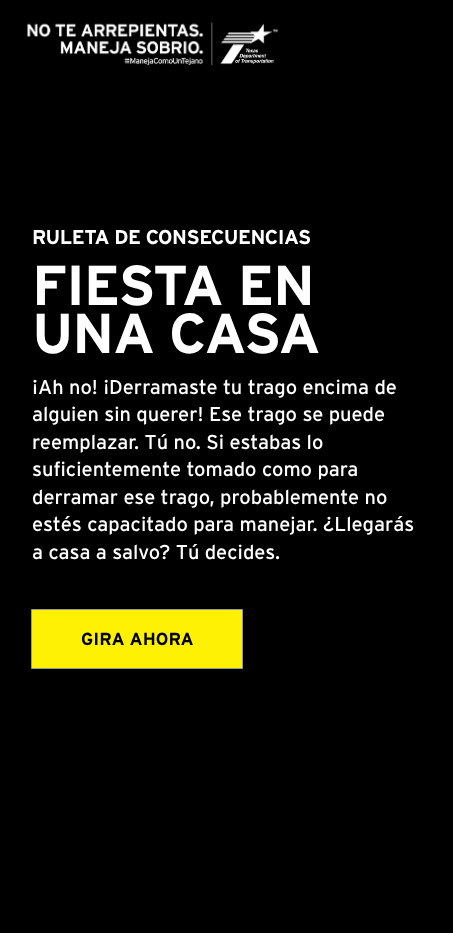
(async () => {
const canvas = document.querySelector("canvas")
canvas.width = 453
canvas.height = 933
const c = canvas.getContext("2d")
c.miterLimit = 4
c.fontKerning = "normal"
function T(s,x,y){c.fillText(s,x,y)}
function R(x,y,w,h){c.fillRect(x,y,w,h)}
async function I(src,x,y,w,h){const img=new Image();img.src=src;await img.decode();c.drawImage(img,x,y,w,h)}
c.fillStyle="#000"
R(0,0,453,933)
await I("1.png",27,22,251,43)
c.letterSpacing="-0.5px"
c.font="bold 20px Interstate"
c.fillStyle="#fff"
T("RULETA DE CONSECUENCIAS",32,244)
c.letterSpacing="-1.25px"
c.font="bold 56.25px Interstate"
T("FIESTA EN",32,305)
T("UNA CASA",32,353)
c.letterSpacing="0px"
c.font="20px Interstate"
T("¡Ah no! ¡Derramaste tu trago encima de",32,394)
T("alguien sin querer! Ese trago se puede",32,421)
T("reemplazar. Tú no. Si estabas lo",32,449)
T("suficientemente tomado como para",32,476)
T("derramar ese trago, probablemente no",32,504)
T("estés capacitado para manejar. ¿Llegarás",32,531)
T("a casa a salvo? Tú decides.",32,559)
c.fillStyle="#fff104"
c.beginPath()
c.rect(31.5,609.5,211,59)
c.fill()
c.strokeStyle="#979797"
c.stroke()
c.font="bold 17.5px Interstate"
c.fillStyle="#000"
T("GIRA AHORA",81,645)
})()
